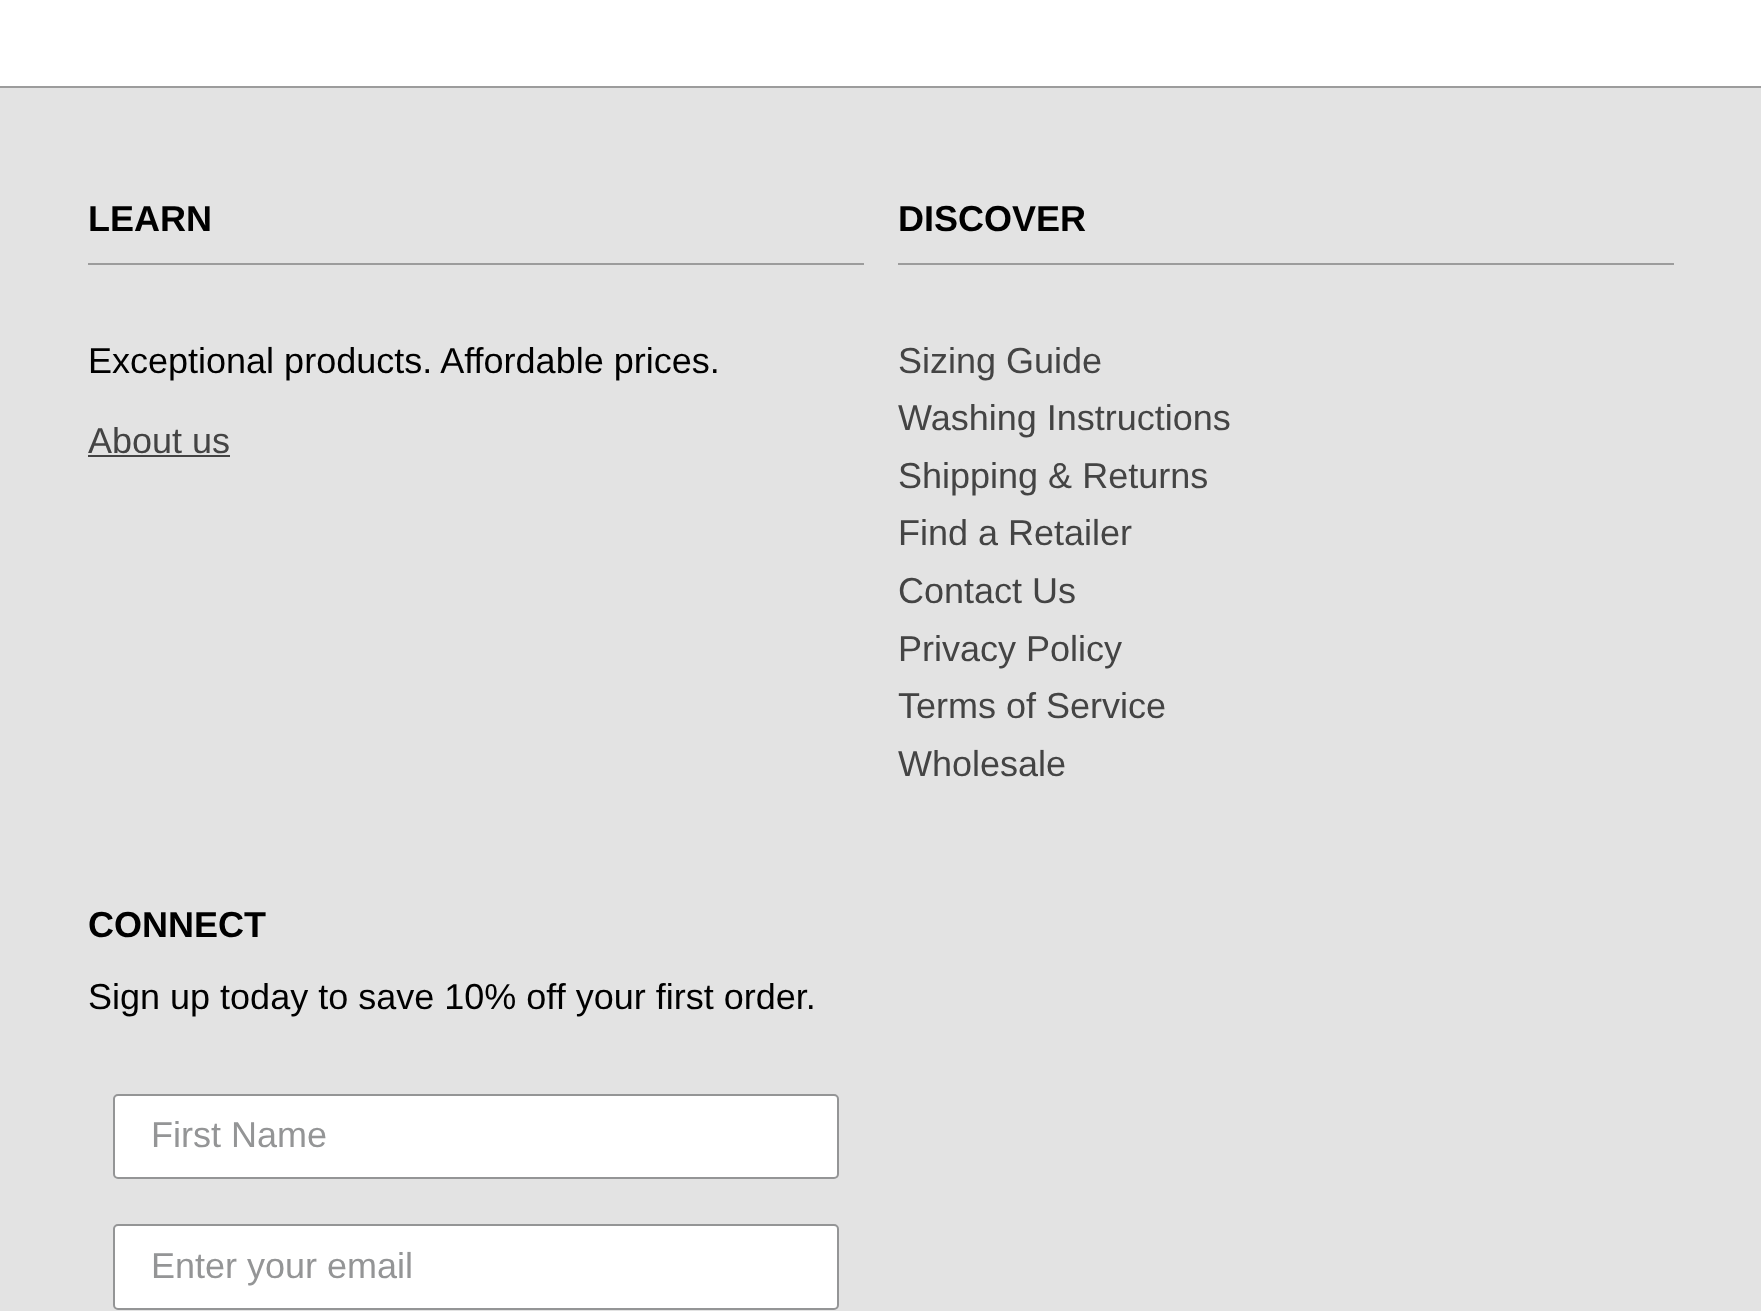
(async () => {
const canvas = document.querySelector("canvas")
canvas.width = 1761
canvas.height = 1311
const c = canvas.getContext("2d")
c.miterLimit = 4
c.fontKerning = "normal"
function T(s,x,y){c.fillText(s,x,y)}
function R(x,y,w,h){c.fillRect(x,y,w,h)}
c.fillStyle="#fff"
R(0,0,1761,1311)
c.fillStyle="#e3e3e3"
R(0,88,1761,1223)
c.fillStyle="#9c9c9c"
R(0,86,1761,2)
R(88,263,776,2)
c.font="bold 36px Liberation Sans"
c.fillStyle="#000"
T("LEARN",88,231)
c.font="36px Liberation Sans"
T("Exceptional products. Affordable prices.",88,373)
c.fillStyle="#444"
T("About us",88,453)
R(88,455,142,2)
c.fillStyle="#9c9c9c"
R(898,263,776,2)
c.font="bold 36px Liberation Sans"
c.fillStyle="#000"
T("DISCOVER",898,231)
c.font="36px Liberation Sans"
c.fillStyle="#444"
T("Sizing Guide",898,373)
T("Washing Instructions",898,430)
T("Shipping & Returns",898,488)
T("Find a Retailer",898,545)
T("Contact Us",898,603)
T("Privacy Policy",898,661)
T("Terms of Service",898,718)
T("Wholesale",898,776)
c.font="bold 36px Liberation Sans"
c.fillStyle="#000"
T("CONNECT",88,937)
c.font="36px Liberation Sans"
T("Sign up today to save 10% off your first order.",88,1009)
c.fillStyle="#fff"
c.beginPath()
c.roundRect(114,1095,724,83,4)
c.fill()
c.strokeStyle="#949596"
c.lineWidth=2
c.stroke()
c.fillStyle="#949596"
T("First Name",151,1147)
c.fillStyle="#fff"
c.beginPath()
c.roundRect(114,1225,724,84,4)
c.fill()
c.stroke()
c.fillStyle="#949596"
T("Enter your email",151,1278)
})()
